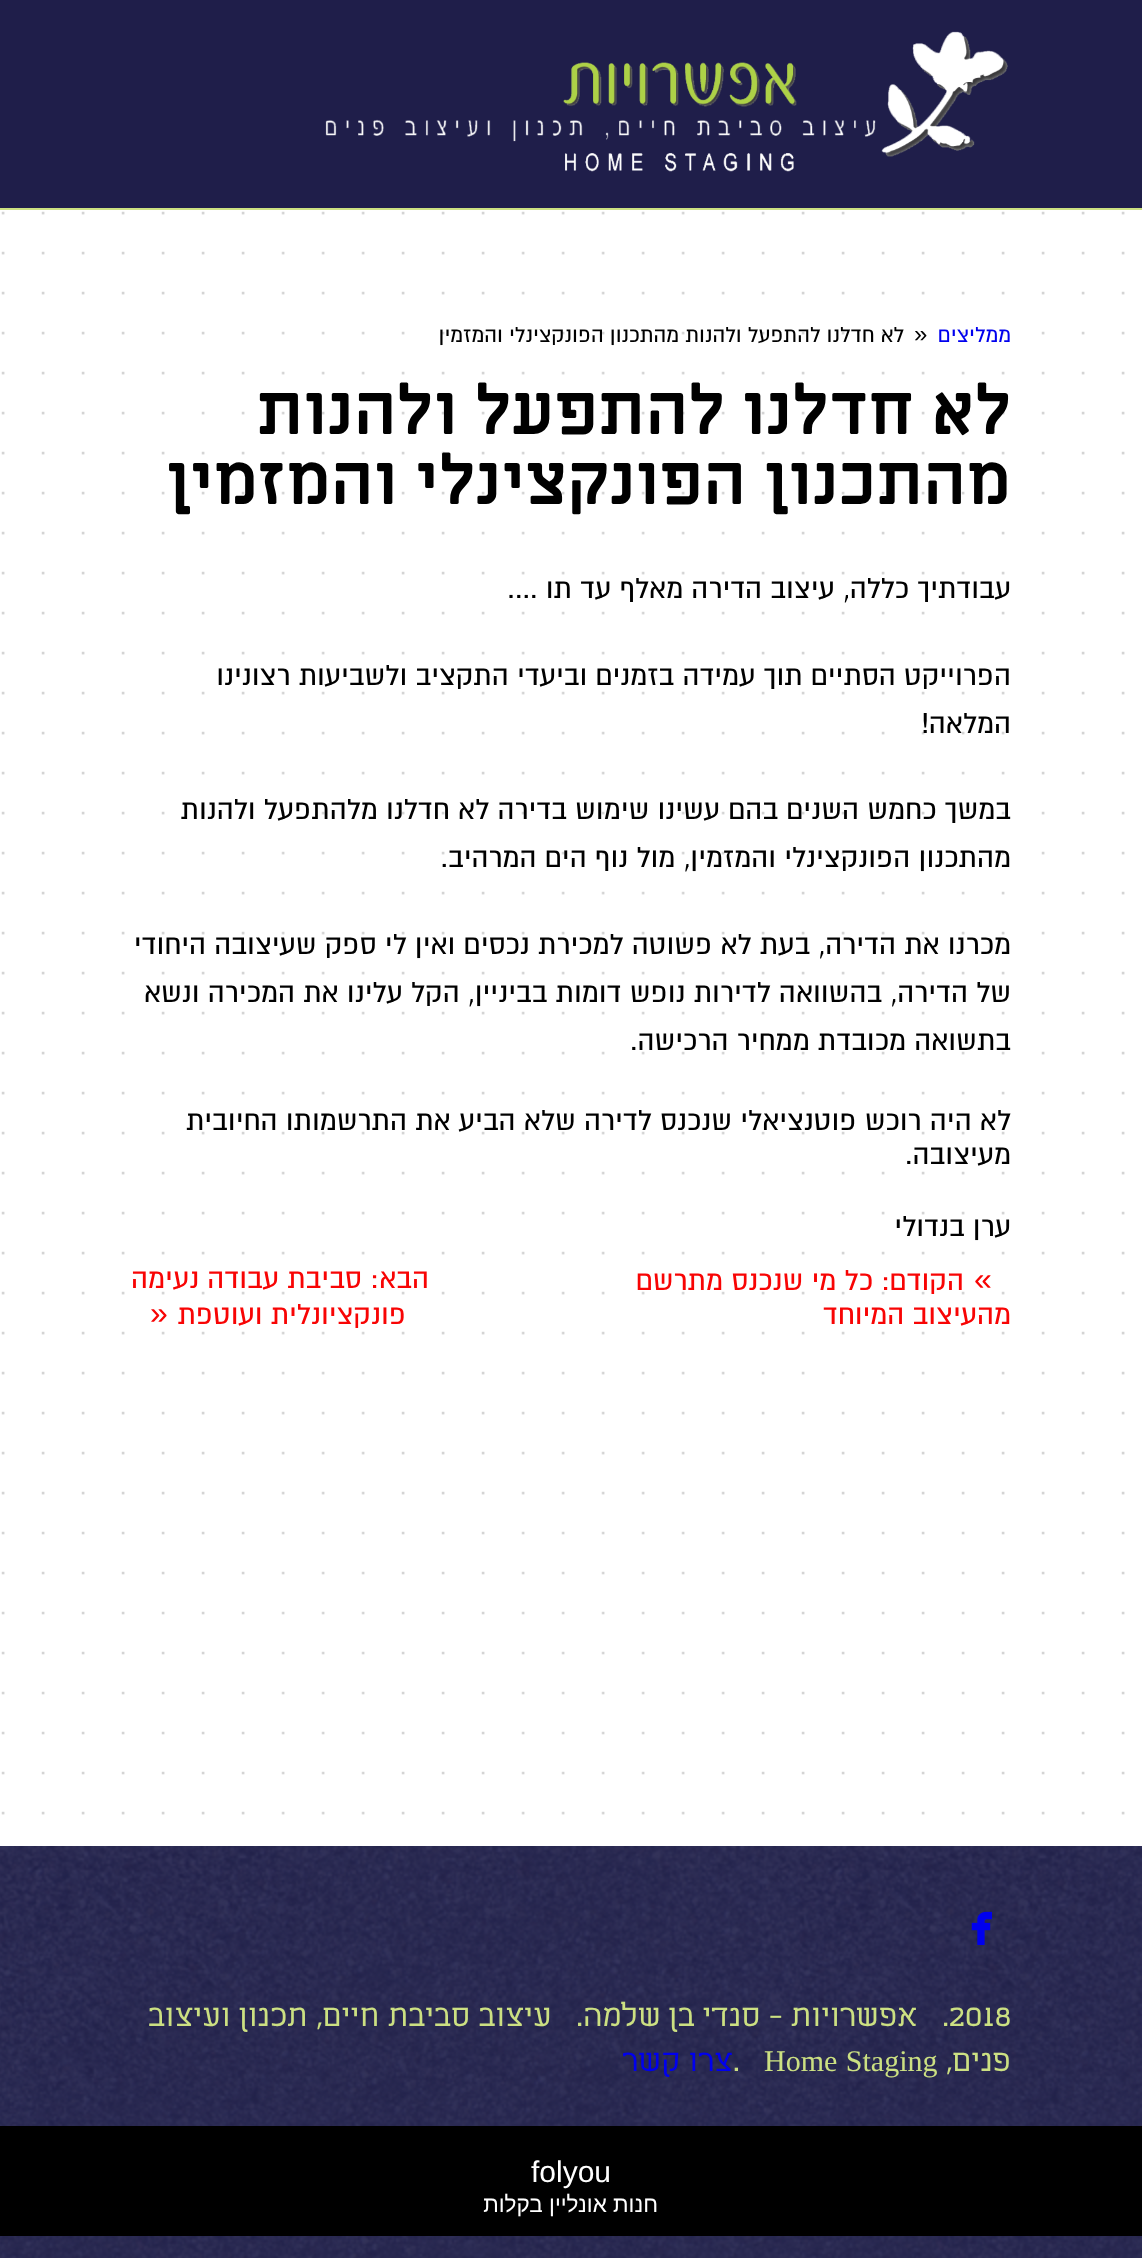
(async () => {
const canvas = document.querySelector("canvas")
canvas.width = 1142
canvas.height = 2258
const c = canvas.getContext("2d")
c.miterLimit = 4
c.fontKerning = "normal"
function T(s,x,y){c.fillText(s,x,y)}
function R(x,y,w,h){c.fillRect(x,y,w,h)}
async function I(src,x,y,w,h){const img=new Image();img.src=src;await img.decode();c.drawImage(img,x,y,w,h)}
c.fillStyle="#fff"
R(0,0,1142,2258)
c.fillStyle="#1f1e4a"
R(0,0,1142,208)
c.fillStyle="#cce082"
R(0,208,1142,2)
await I("1.png",325,31,683,141)
await I("2.png",1,211,1124,1604)
c.direction="rtl"
c.font="24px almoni"
c.fillStyle="#00e"
T("ממליצים",1011,342)
c.direction="ltr"
c.font="24px Liberation Sans"
c.fillStyle="#000"
T("»",914,342)
c.direction="rtl"
c.font="24px almoni"
T("לא חדלנו להתפעל ולהנות מהתכנון הפונקצינלי והמזמין",904,342)
c.font="bold 70px Miriam Libre"
T("לא חדלנו להתפעל ולהנות",1011,434)
T("מהתכנון הפונקצינלי והמזמין",1011,504)
c.font="32px almoni"
T("עבודתיך כללה, עיצוב הדירה מאלף עד תו ....",1011,598)
T("הפרוייקט הסתיים תוך עמידה בזמנים וביעדי התקציב ולשביעות רצונינו",1011,685)
T("המלאה!",1011,733)
T("במשך כחמש השנים בהם עשינו שימוש בדירה לא חדלנו מלהתפעל ולהנות",1011,819)
T("מהתכנון הפונקצינלי והמזמין, מול נוף הים המרהיב.",1011,867)
T("מכרנו את הדירה, בעת לא פשוטה למכירת נכסים ואין לי ספק שעיצובה היחודי",1011,954)
T("של הדירה, בהשוואה לדירות נופש דומות בביניין, הקל עלינו את המכירה ונשא",1011,1002)
T("בתשואה מכובדת ממחיר הרכישה.",1011,1050)
T("לא היה רוכש פוטנציאלי שנכנס לדירה שלא הביע את התרשמותו החיובית",1011,1130)
T("מעיצובה.",1011,1164)
T("ערן בנדולי",1011,1236)
c.direction="ltr"
c.font="32px Liberation Sans"
c.fillStyle="#f80404"
T("«",974,1290)
c.direction="rtl"
c.font="32px almoni"
T("הקודם",964,1290)
T(": כל מי שנכנס מתרשם",890,1290)
T("מהעיצוב המיוחד",1011,1324)
T("הבא",429,1288)
T(": סביבת עבודה נעימה",379,1288)
T("פונקציונלית ועוטפת",406,1324)
c.direction="ltr"
c.font="32px Liberation Sans"
T("»",150,1324)
c.fillStyle="#1f1e4a"
R(0,1846,1142,412)
await I("3.png",0,1846,1142,412)
await I("4.png",971,1911,21,34)
c.font="30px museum"
c.fillStyle="#cce082"
T("2018",949,2026)
c.direction="rtl"
T(".   אפשרויות - סנדי בן שלמה.   עיצוב סביבת חיים, תכנון ועיצוב",949,2026)
T("פנים,",1011,2071)
c.wordSpacing="1px"
c.direction="ltr"
c.font="30px Liberation Serif"
T("Home Staging",764,2071)
c.wordSpacing="0px"
c.font="30px museum"
T(".",733,2071)
c.direction="rtl"
c.fillStyle="#00e"
T("צרו קשר",733,2071)
c.fillStyle="#000"
R(0,2126,1142,110)
c.direction="ltr"
c.font="30px Liberation Sans"
c.fillStyle="#fff"
T("folyou",531,2182)
c.direction="rtl"
c.font="22.5px Liberation Sans"
T("חנות אונליין בקלות",658,2212)
})()
